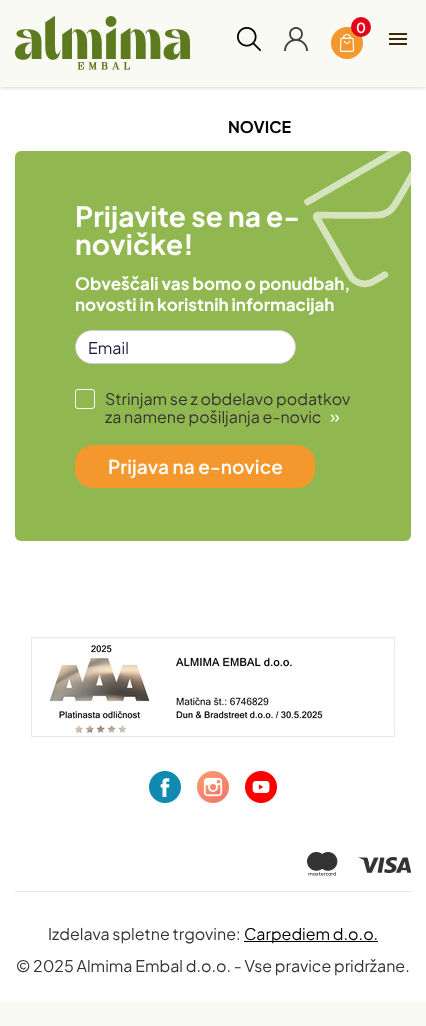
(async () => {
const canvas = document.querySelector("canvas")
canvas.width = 426
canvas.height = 1026
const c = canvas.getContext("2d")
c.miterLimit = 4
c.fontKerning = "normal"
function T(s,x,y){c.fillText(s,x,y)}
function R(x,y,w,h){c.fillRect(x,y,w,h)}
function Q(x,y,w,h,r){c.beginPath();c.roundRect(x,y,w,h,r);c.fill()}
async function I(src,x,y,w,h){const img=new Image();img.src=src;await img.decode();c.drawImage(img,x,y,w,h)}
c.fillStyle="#fff"
R(0,0,426,1026)
c.fillStyle="#00000040"
c.filter="blur(2px)"
c.beginPath()
c.rect(0,-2,426,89)
c.fill()
c.filter="none"
c.fillStyle="#fafaf5"
R(0,0,426,87)
await I("1.png",15,15,175,55)
await I("2.png",237,27,24,24)
await I("3.png",284,27,24,24)
c.fillStyle="#f4972d"
c.beginPath()
c.arc(347,43,16,0,7)
c.fill()
await I("4.png",339,34,16,18)
c.fillStyle="#e50019"
c.beginPath()
c.arc(361,27,10,0,7)
c.fill()
c.font="600 14px Plus Jakarta Sans"
c.fillStyle="#fff"
T("0",356,33)
await I("5.png",389,33,18,12)
c.font="bold 16px Plus Jakarta Sans"
c.fillStyle="#000"
T("NOVICE",228,133)
c.fillStyle="#91b850"
Q(15,151,396,390,6)
c.letterSpacing="0.1px"
c.font="bold 28px Plus Jakarta Sans"
c.fillStyle="#fff"
T("Prijavite se na e-",75,227)
T("novičke!",75,255)
c.letterSpacing="0px"
c.font="bold 17px Plus Jakarta Sans"
T("Obveščali vas bomo o ponudbah,",75,290)
T("novosti in koristnih informacijah",75,311)
c.beginPath()
c.roundRect(75.5,330.5,220,33,16.5)
c.fill()
c.strokeStyle="#ccc"
c.stroke()
c.font="16px Plus Jakarta Sans"
c.fillStyle="#17173e"
T("Email",88,354)
c.beginPath()
c.roundRect(75.5,389.5,19,19,2.5)
c.strokeStyle="#fff"
c.stroke()
c.fillStyle="#333"
T("Strinjam se z obdelavo podatkov",105,405)
T("za namene pošiljanja e-novic",105,423)
c.font="18px Plus Jakarta Sans"
c.fillStyle="#fff"
T("»",330,423)
c.fillStyle="#f4972d"
Q(75,445,240,43,18)
c.letterSpacing="0.1px"
c.font="600 19px Plus Jakarta Sans"
c.fillStyle="#fff"
T("Prijava na e-novice",108,474)
await I("6.png",304,151,107,137)
await I("7.png",31,637,364,100)
await I("8.png",149,771,32,32)
await I("9.png",197,771,32,32)
await I("10.png",245,771,32,32)
await I("11.png",307,852,31,24)
await I("12.png",358,857,53,16)
c.fillStyle="#e2e2e2"
R(15,891,396,1)
c.letterSpacing="0px"
c.font="16px Plus Jakarta Sans"
c.fillStyle="#333"
T("Izdelava spletne trgovine:",48,940)
c.fillStyle="#000"
R(244,941,134,1)
T("Carpediem d.o.o.",244,940)
c.fillStyle="#333"
T("© 2025 Almima Embal d.o.o. - Vse pravice pridržane.",16,972)
c.fillStyle="#fafaf5"
R(0,1002,426,24)
})()
